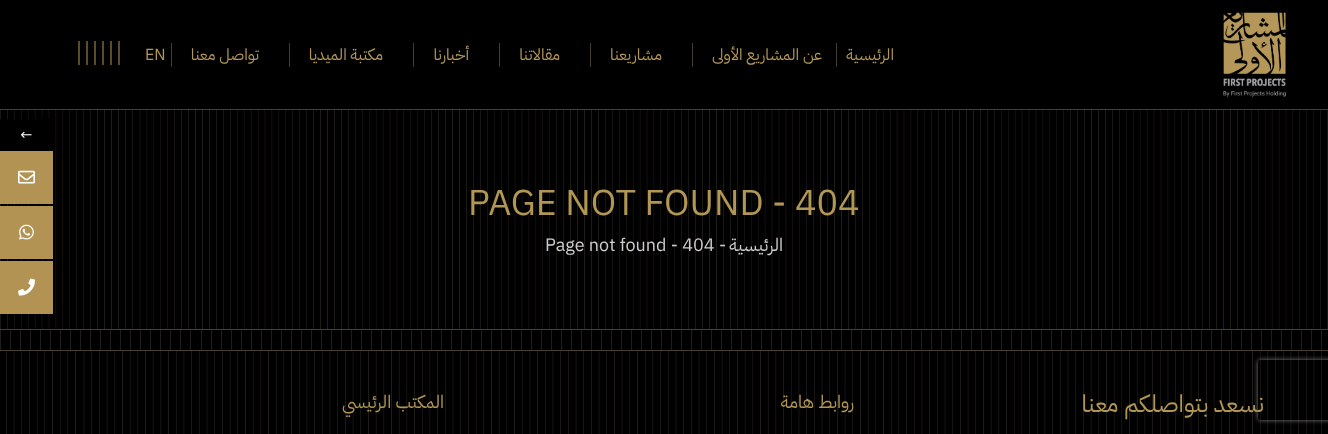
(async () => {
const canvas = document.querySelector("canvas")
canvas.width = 1328
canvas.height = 434
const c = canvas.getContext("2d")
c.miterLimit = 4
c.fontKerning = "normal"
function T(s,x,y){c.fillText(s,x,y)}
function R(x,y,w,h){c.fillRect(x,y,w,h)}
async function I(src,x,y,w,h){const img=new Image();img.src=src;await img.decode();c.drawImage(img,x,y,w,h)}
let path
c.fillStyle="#000"
R(0,0,1328,434)
c.fillStyle="#483f30"
R(0,109,1328,1)
await I("1.png",1223,12,63,85)
c.direction="rtl"
c.font="16px IBM Plex Sans Arabic"
c.fillStyle="#b3975a"
T("الرئيسية",894,60)
c.fillStyle="#473c30"
R(836,43,1,24)
c.fillStyle="#b3975a"
T("عن المشاريع الأولى",822,60)
c.fillStyle="#473c30"
R(692,43,1,24)
c.fillStyle="#b3975a"
T("مشاريعنا",662,60)
c.fillStyle="#473c30"
R(590,43,1,24)
c.fillStyle="#b3975a"
T("مقالاتنا",560,60)
c.fillStyle="#473c30"
R(499,43,1,24)
c.fillStyle="#b3975a"
T("أخبارنا",469,60)
c.fillStyle="#473c30"
R(413,43,1,24)
c.fillStyle="#b3975a"
T("مكتبة الميديا",383,60)
c.fillStyle="#473c30"
R(289,43,1,24)
c.fillStyle="#b3975a"
T("تواصل معنا",259,60)
c.fillStyle="#473c30"
R(171,43,1,24)
c.direction="ltr"
c.fillStyle="#b3975a"
T("EN",145,60)
await I("2.png",78,41,42,24)
await I("3.png",0,330,1322,20)
await I("4.png",0,110,1328,219)
c.fillStyle="#483f30"
R(0,329,1328,1)
c.font="36px IBM Plex Sans Arabic"
c.fillStyle="#b29653"
T("PAGE NOT FOUND - 404",468,215)
c.direction="rtl"
c.font="18px IBM Plex Sans Arabic"
c.fillStyle="#ccc"
T("الرئيسية",783,251)
c.direction="ltr"
T("-",719,251)
T("Page not found - 404",545,251)
await I("5.png",6,351,1316,83)
c.fillStyle="#483f30"
R(0,350,1328,1)
c.direction="rtl"
c.font="24px IBM Plex Sans Arabic"
c.fillStyle="#b29653"
T("نسعد بتواصلكم معنا",1264,412)
c.font="18px IBM Plex Sans Arabic"
T("روابط هامة",854,408)
T("المكتب الرئيسي",444,408)
c.fillStyle="#000"
R(0,119,50,32)
c.direction="ltr"
c.font="15px IBM Plex Sans Arabic"
c.fillStyle="#fff"
T("←",20,140)
c.fillStyle="#b29353"
R(0,151,53,53)
await I("6.png",18,170,17,14)
R(0,206,53,53)
await I("7.png",19,224,15,16)
R(0,261,53,53)
await I("8.png",18,278,17,18)
c.save()
path = new Path2D("M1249 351h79v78h-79zm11 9h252c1 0 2 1 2 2v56c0 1-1 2-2 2h-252c-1 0-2-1-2-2v-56c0-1 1-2 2-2z")
c.clip(path,"evenodd")
c.fillStyle="#808080"
c.filter="blur(2.5px)"
c.beginPath()
c.roundRect(1258,360,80,60,2)
c.fill()
c.filter="none"
c.restore()
})()
